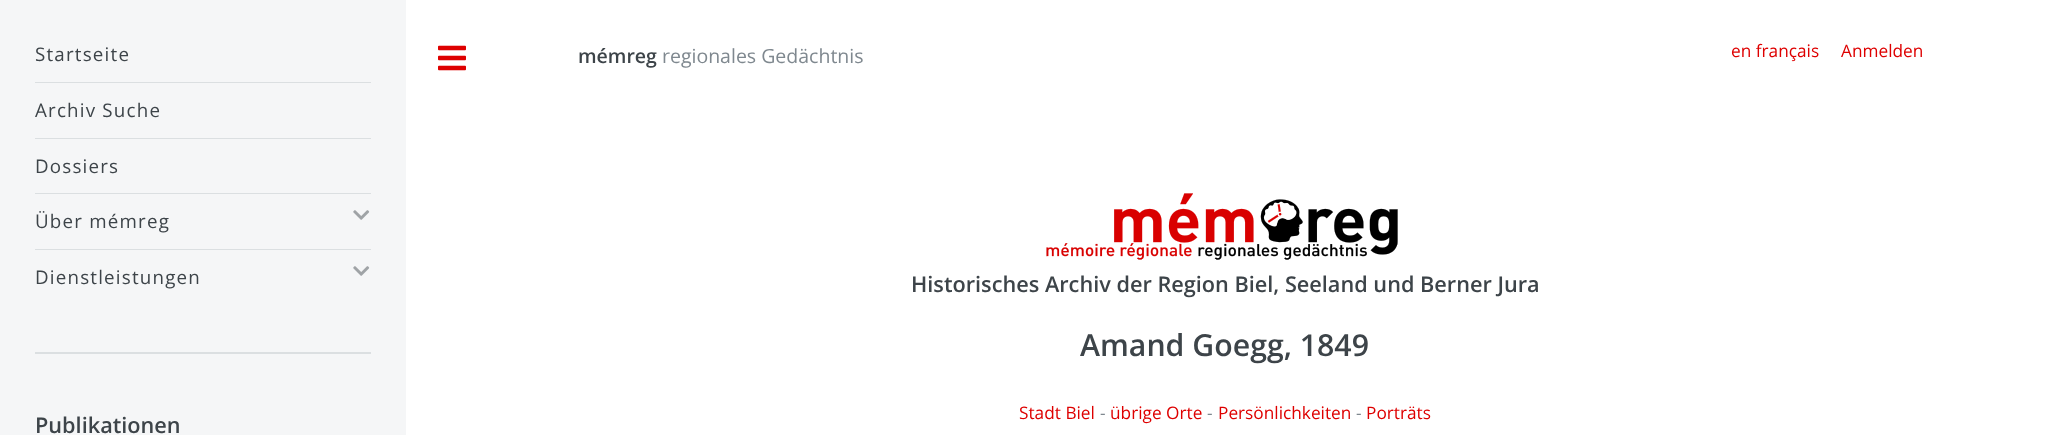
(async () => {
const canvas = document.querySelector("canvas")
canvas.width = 2045
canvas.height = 435
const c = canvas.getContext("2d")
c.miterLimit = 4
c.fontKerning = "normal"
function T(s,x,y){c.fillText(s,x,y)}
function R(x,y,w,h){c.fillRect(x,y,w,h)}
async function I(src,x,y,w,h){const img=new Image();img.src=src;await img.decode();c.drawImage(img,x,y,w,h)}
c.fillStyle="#fff"
R(0,0,2045,435)
c.fillStyle="#f5f6f7"
R(0,0,406,435)
c.fillStyle="#dbdfe1"
R(35,352,336,2)
c.letterSpacing="1.2px"
c.font="18.75px Open Sans"
c.fillStyle="#3d4449"
T("Startseite",35,61)
c.fillStyle="#dbdfe1"
R(35,82,336,1)
c.fillStyle="#3d4449"
T("Archiv Suche",35,117)
c.fillStyle="#dbdfe1"
R(35,138,336,1)
c.fillStyle="#3d4449"
T("Dossiers",35,173)
c.fillStyle="#dbdfe1"
R(35,193,336,1)
c.fillStyle="#3d4449"
T("Über mémreg",35,228)
await I("1.png",353,210,17,10)
c.fillStyle="#dbdfe1"
R(35,249,336,1)
c.fillStyle="#3d4449"
T("Dienstleistungen",35,284)
await I("1.png",353,266,17,10)
c.letterSpacing="0px"
c.font="600 21.7px Open Sans"
T("Publikationen",35,433)
await I("2.png",438,45,28,26)
c.font="600 19.5px Open Sans"
T("mémreg",578,63)
c.font="19.5px Open Sans"
c.fillStyle="#7f888f"
T("regionales Gedächtnis",662,63)
c.font="17.25px Open Sans"
c.fillStyle="#de0000"
T("en français",1731,57)
T("Anmelden",1841,57)
await I("3.png",1046,193,352,67)
c.font="600 21.7px Open Sans"
c.fillStyle="#3d4449"
T("Historisches Archiv der Region Biel, Seeland und Berner Jura",911,292)
c.font="600 30.25px Open Sans"
T("Amand Goegg, 1849",1080,356)
c.font="17.25px Open Sans"
c.fillStyle="#de0000"
T("Stadt Biel",1019,419)
c.fillStyle="#7f888f"
T("-",1100,419)
c.fillStyle="#de0000"
T("übrige Orte",1110,419)
c.fillStyle="#7f888f"
T("-",1207,419)
c.fillStyle="#de0000"
T("Persönlichkeiten",1218,419)
c.fillStyle="#7f888f"
T("-",1356,419)
c.fillStyle="#de0000"
T("Porträts",1366,419)
})()
